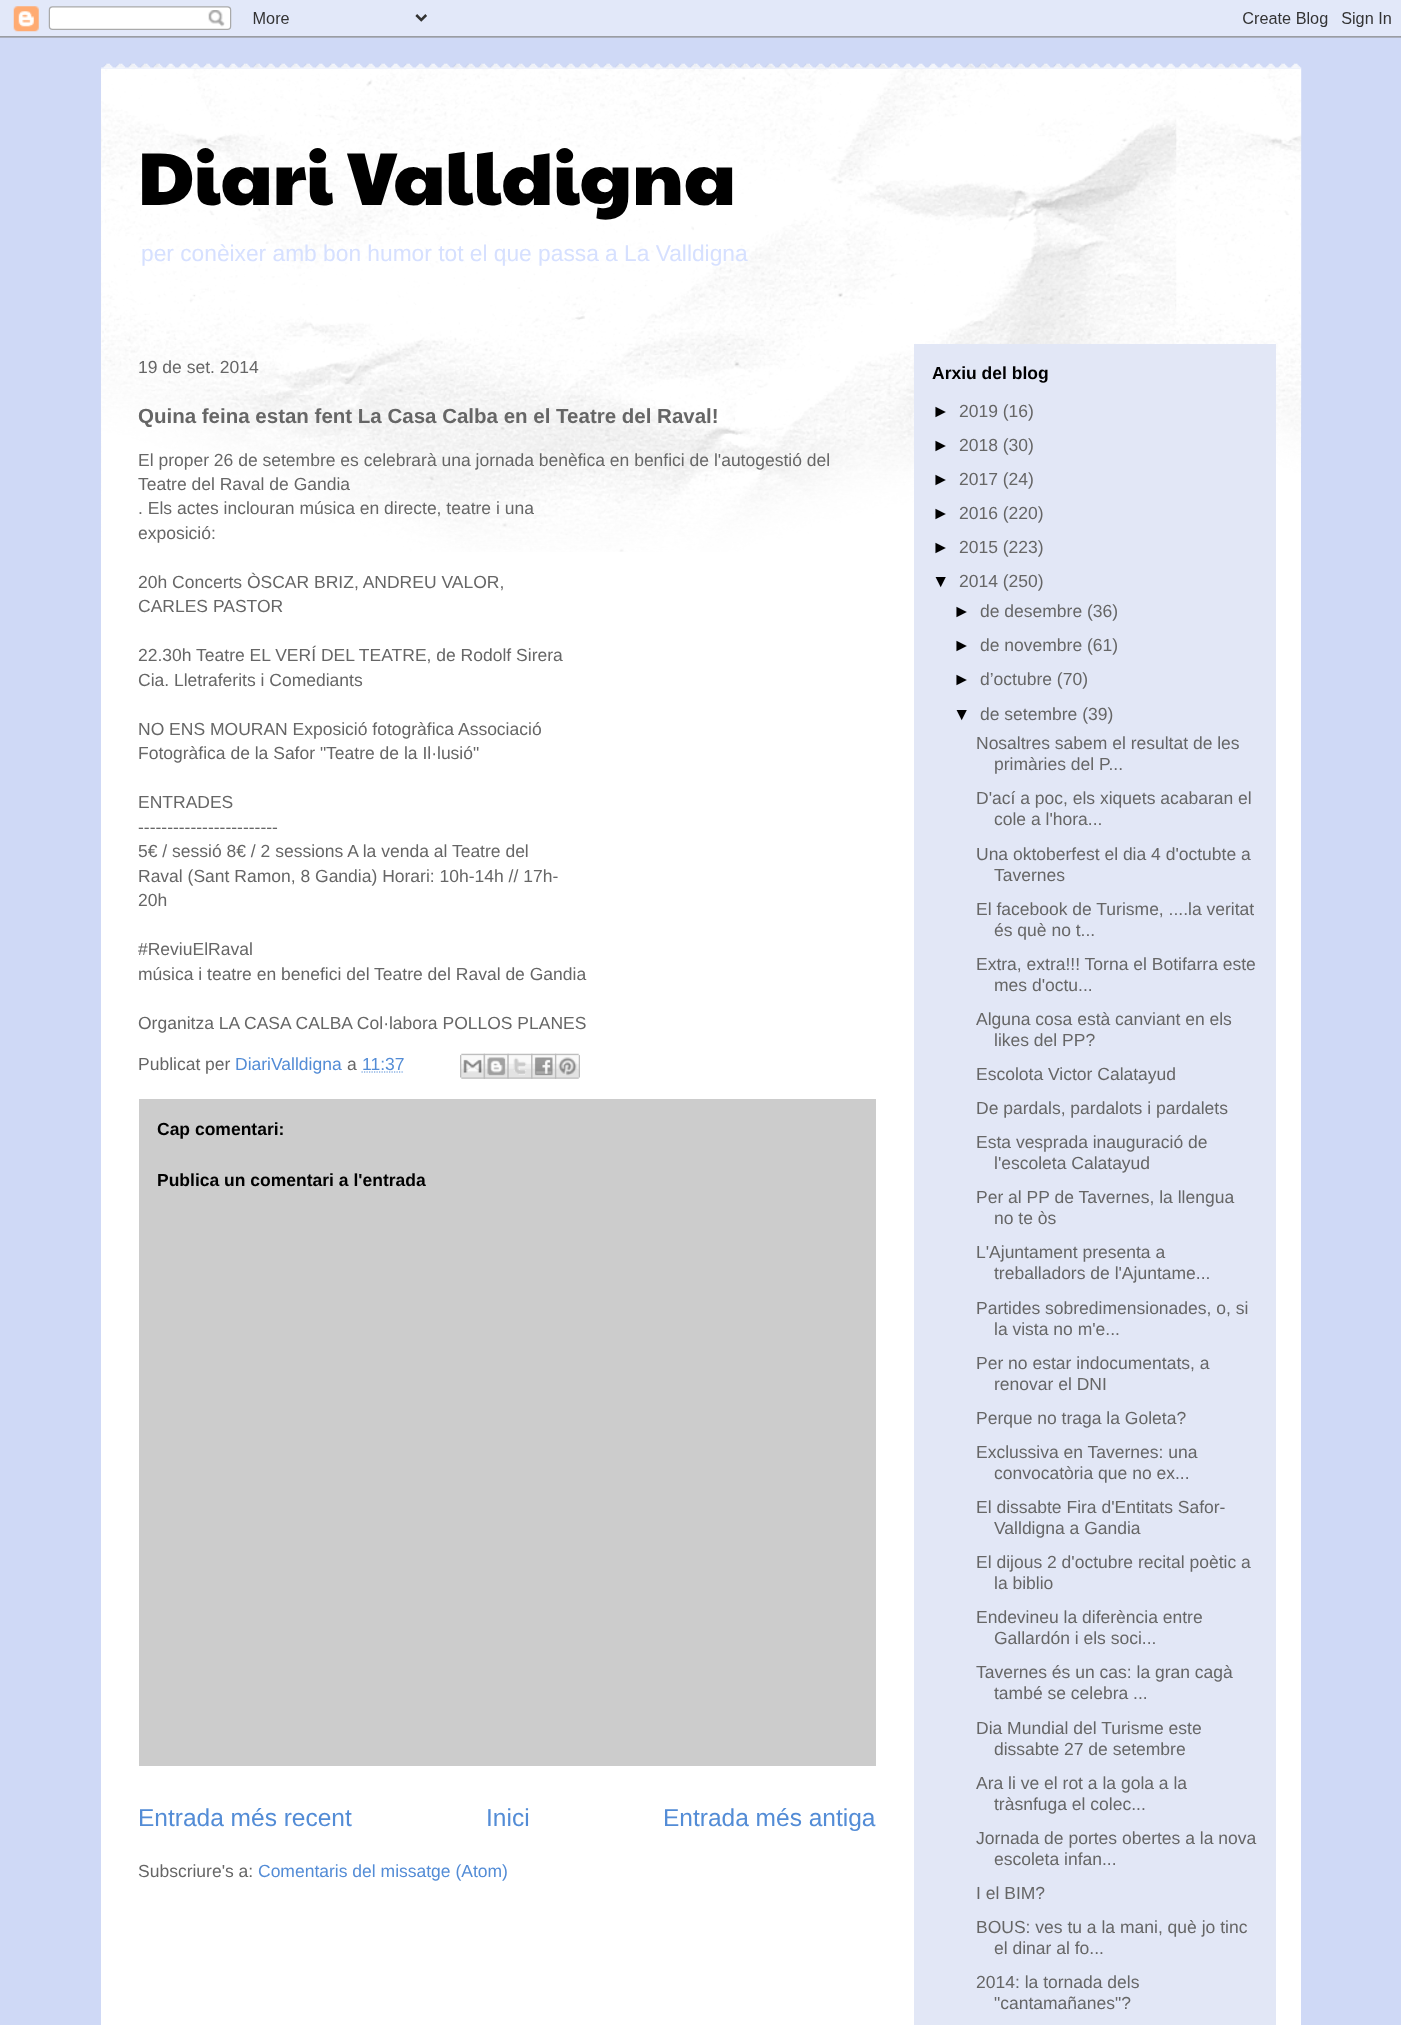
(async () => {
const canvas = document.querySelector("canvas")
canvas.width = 1401
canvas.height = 2025
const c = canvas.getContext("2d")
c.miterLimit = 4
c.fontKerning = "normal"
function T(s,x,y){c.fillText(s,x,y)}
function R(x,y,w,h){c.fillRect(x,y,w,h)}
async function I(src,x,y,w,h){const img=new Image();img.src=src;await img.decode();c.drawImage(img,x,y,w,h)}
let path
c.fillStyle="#cfd9f6"
R(0,0,1401,2025)
await I("1.png",0,0,1401,38)
await I("2.png",101,63,1201,6)
c.fillStyle="#fff"
R(101,69,1200,1956)
await I("3.png",101,68,1201,484)
c.font="75px Paytone One"
c.fillStyle="#000"
T("Diari Valldigna",138,205)
c.font="22.75px Liberation Sans"
c.fillStyle="#d6e0ff"
T("per conèixer amb bon humor tot el que passa a La Valldigna",141,261)
c.fillStyle="#e2e7f6"
R(914,344,362,1681)
c.font="17.5px Liberation Sans"
c.fillStyle="#666"
T("19 de set. 2014",138,373)
c.font="bold 20.5px Liberation Sans"
T("Quina feina estan fent La Casa Calba en el Teatre del Raval!",138,423)
c.font="17.5px Liberation Sans"
T("El proper 26 de setembre es celebrarà una jornada benèfica en benfici de l'autogestió del",138,466)
T("Teatre del Raval de Gandia",138,490)
T(". Els actes inclouran música en directe, teatre i una",138,514)
T("exposició:",138,539)
T("20h Concerts ÒSCAR BRIZ, ANDREU VALOR,",138,588)
T("CARLES PASTOR",138,612)
T("22.30h Teatre EL VERÍ DEL TEATRE, de Rodolf Sirera",138,661)
T("Cia. Lletraferits i Comediants",138,686)
T("NO ENS MOURAN Exposició fotogràfica Associació",138,735)
T("Fotogràfica de la Safor \"Teatre de la Il·lusió\"",138,759)
T("ENTRADES",138,808)
T("------------------------",138,833)
T("5€ / sessió 8€ / 2 sessions A la venda al Teatre del",138,857)
T("Raval (Sant Ramon, 8 Gandia) Horari: 10h-14h // 17h-",138,882)
T("20h",138,906)
T("#ReviuElRaval",138,955)
T("música i teatre en benefici del Teatre del Raval de Gandia",138,980)
T("Organitza LA CASA CALBA Col·labora POLLOS PLANES",138,1029)
T("Publicat per",138,1070)
c.fillStyle="#538cd6"
T("DiariValldigna",235,1070)
c.fillStyle="#666"
T("a",347,1070)
c.fillStyle="#538cd6"
T("11:37",362,1070)
path = new Path2D("M361.5 1072h42.5")
c.strokeStyle="#538cd6"
c.lineWidth=1.2
c.setLineDash([1.25,1.25])
c.stroke(path)
await I("4.png",460,1053,25,26)
await I("5.png",483,1053,26,26)
await I("6.png",507,1053,26,26)
await I("7.png",531,1053,26,26)
await I("8.png",555,1053,25,26)
c.fillStyle="#ccc"
R(139,1099,737,667)
c.font="bold 17.5px Liberation Sans"
c.fillStyle="#000"
T("Cap comentari:",157,1135)
T("Publica un comentari a l'entrada",157,1186)
c.font="24.5px Liberation Sans"
c.fillStyle="#538cd6"
T("Entrada més recent",138,1826)
T("Inici",486,1826)
T("Entrada més antiga",663,1826)
c.font="17.5px Liberation Sans"
c.fillStyle="#666"
T("Subscriure's a:",138,1877)
c.fillStyle="#538cd6"
T("Comentaris del missatge (Atom)",258,1877)
c.font="bold 17.5px Liberation Sans"
c.fillStyle="#000"
T("Arxiu del blog",932,379)
c.font="17.5px Liberation Sans"
T("►",932,417)
c.fillStyle="#666"
T("2019 (16)",959,417)
c.fillStyle="#000"
T("►",932,451)
c.fillStyle="#666"
T("2018 (30)",959,451)
c.fillStyle="#000"
T("►",932,485)
c.fillStyle="#666"
T("2017 (24)",959,485)
c.fillStyle="#000"
T("►",932,519)
c.fillStyle="#666"
T("2016 (220)",959,519)
c.fillStyle="#000"
T("►",932,553)
c.fillStyle="#666"
T("2015 (223)",959,553)
c.fillStyle="#000"
T("▼",932,587)
c.fillStyle="#666"
T("2014 (250)",959,587)
c.fillStyle="#000"
T("►",953,617)
c.fillStyle="#666"
T("de desembre (36)",980,617)
c.fillStyle="#000"
T("►",953,651)
c.fillStyle="#666"
T("de novembre (61)",980,651)
c.fillStyle="#000"
T("►",953,685)
c.fillStyle="#666"
T("d’octubre (70)",980,685)
c.fillStyle="#000"
T("▼",953,720)
c.fillStyle="#666"
T("de setembre (39)",980,720)
T("Nosaltres sabem el resultat de les",976,749)
T("primàries del P...",994,770)
T("D'ací a poc, els xiquets acabaran el",976,804)
T("cole a l'hora...",994,825)
T("Una oktoberfest el dia 4 d'octubte a",976,860)
T("Tavernes",994,881)
T("El facebook de Turisme, ....la veritat",976,915)
T("és què no t...",994,936)
T("Extra, extra!!! Torna el Botifarra este",976,970)
T("mes d'octu...",994,991)
T("Alguna cosa està canviant en els",976,1025)
T("likes del PP?",994,1046)
T("Escolota Victor Calatayud",976,1080)
T("De pardals, pardalots i pardalets",976,1114)
T("Esta vesprada inauguració de",976,1148)
T("l'escoleta Calatayud",994,1169)
T("Per al PP de Tavernes, la llengua",976,1203)
T("no te òs",994,1224)
T("L'Ajuntament presenta a",976,1258)
T("treballadors de l'Ajuntame...",994,1279)
T("Partides sobredimensionades, o, si",976,1314)
T("la vista no m'e...",994,1335)
T("Per no estar indocumentats, a",976,1369)
T("renovar el DNI",994,1390)
T("Perque no traga la Goleta?",976,1424)
T("Exclussiva en Tavernes: una",976,1458)
T("convocatòria que no ex...",994,1479)
T("El dissabte Fira d'Entitats Safor-",976,1513)
T("Valldigna a Gandia",994,1534)
T("El dijous 2 d'octubre recital poètic a",976,1568)
T("la biblio",994,1589)
T("Endevineu la diferència entre",976,1623)
T("Gallardón i els soci...",994,1644)
T("Tavernes és un cas: la gran cagà",976,1678)
T("també se celebra ...",994,1699)
T("Dia Mundial del Turisme este",976,1734)
T("dissabte 27 de setembre",994,1755)
T("Ara li ve el rot a la gola a la",976,1789)
T("tràsnfuga el colec...",994,1810)
T("Jornada de portes obertes a la nova",976,1844)
T("escoleta infan...",994,1865)
T("I el BIM?",976,1899)
T("BOUS: ves tu a la mani, què jo tinc",976,1933)
T("el dinar al fo...",994,1954)
T("2014: la tornada dels",976,1988)
T("\"cantamañanes\"?",994,2009)
})()
